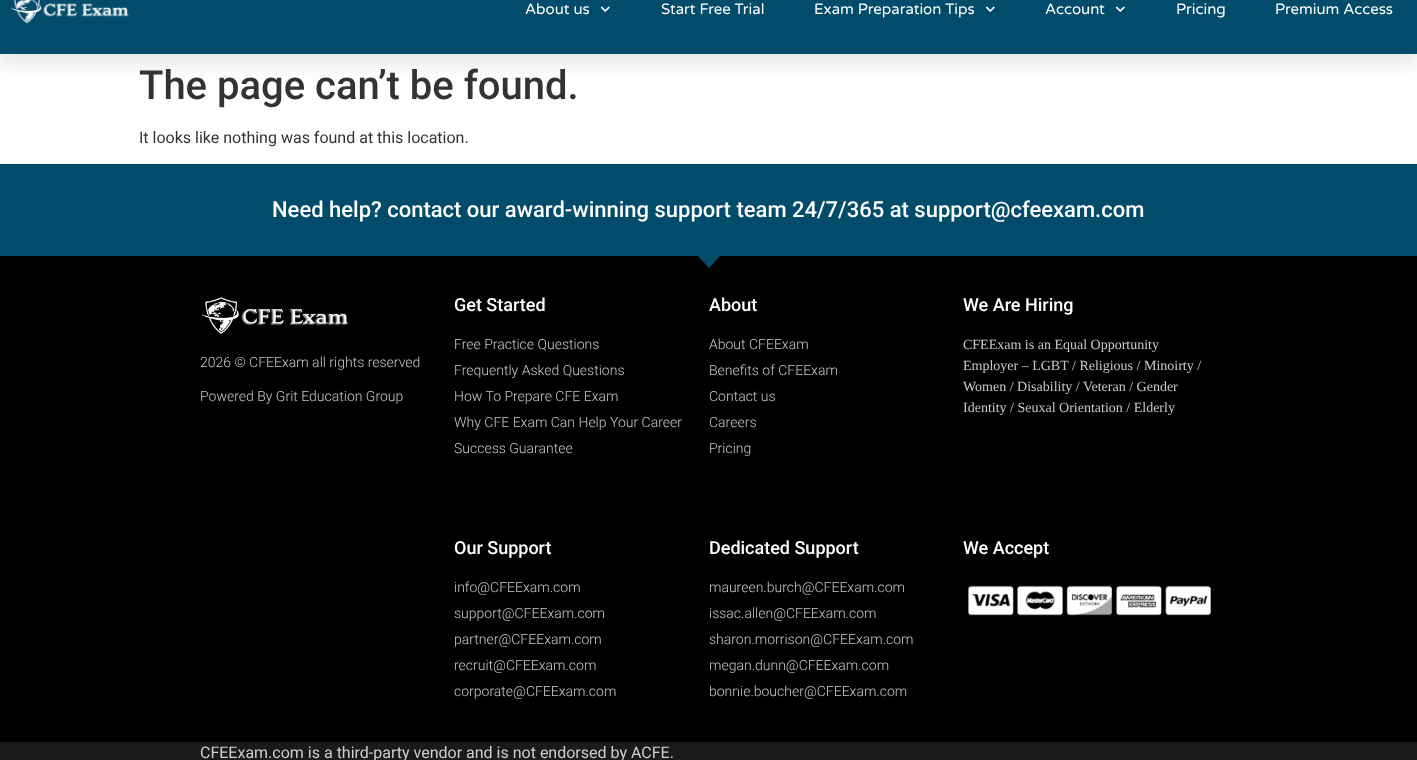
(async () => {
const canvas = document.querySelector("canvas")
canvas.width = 1417
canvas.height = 760
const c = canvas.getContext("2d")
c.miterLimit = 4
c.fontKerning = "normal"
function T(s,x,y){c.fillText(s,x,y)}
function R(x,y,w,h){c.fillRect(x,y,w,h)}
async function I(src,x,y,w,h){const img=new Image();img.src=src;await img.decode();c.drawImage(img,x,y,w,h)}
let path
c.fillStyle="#fff"
R(0,0,1417,760)
c.fillStyle="#0000001a"
c.filter="blur(10px)"
c.beginPath()
c.rect(0,-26,1417,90)
c.fill()
c.filter="none"
c.fillStyle="#014b6b"
R(0,0,1417,54)
await I("1.png",11,0,118,24)
c.font="15px Varela Round"
c.fillStyle="#fff"
T("About us",525,14)
await I("2.png",600,6,10,6)
T("Start Free Trial",661,14)
T("Exam Preparation Tips",814,14)
await I("2.png",985,6,10,6)
T("Account",1045,14)
await I("2.png",1115,6,10,6)
T("Pricing",1176,14)
T("Premium Access",1275,14)
c.font="500 40px Roboto"
c.fillStyle="#333"
T("The page can’t be found.",139,99)
c.font="16px Roboto"
T("It looks like nothing was found at this location.",139,143)
c.fillStyle="#014b6b"
R(0,164,1417,92)
c.font="500 22px Roboto"
c.fillStyle="#fff"
T("Need help? contact our award-winning support team 24/7/365 at support@cfeexam.com",272,217)
c.fillStyle="#000"
R(0,256,1417,486)
c.fillStyle="#014b6b"
path = new Path2D("M709 268l-12-13h24z")
c.fill(path)
await I("3.png",201,296,148,39)
c.font="300 14px Roboto"
c.fillStyle="#c9c9c9"
T("2026 © CFEExam all rights reserved",200,367)
T("Powered By Grit Education Group",200,401)
c.font="500 18px Roboto"
c.fillStyle="#fff"
T("Get Started",454,311)
c.font="300 14px Roboto"
c.fillStyle="#c9c9c9"
T("Free Practice Questions",454,349)
T("Frequently Asked Questions",454,375)
T("How To Prepare CFE Exam",454,401)
T("Why CFE Exam Can Help Your Career",454,427)
T("Success Guarantee",454,453)
c.font="500 18px Roboto"
c.fillStyle="#fff"
T("About",709,311)
c.font="300 14px Roboto"
c.fillStyle="#c9c9c9"
T("About CFEExam",709,349)
T("Benefits of CFEExam",709,375)
T("Contact us",709,401)
T("Careers",709,427)
T("Pricing",709,453)
c.font="500 18px Roboto"
c.fillStyle="#fff"
T("We Are Hiring",963,311)
c.font="14px Liberation Serif"
c.fillStyle="#c9c9c9"
T("CFEExam is an Equal Opportunity",963,349)
T("Employer – LGBT / Religious / Minoirty /",963,370)
T("Women / Disability / Veteran / Gender",963,391)
T("Identity / Seuxal Orientation / Elderly",963,412)
c.font="500 18px Roboto"
c.fillStyle="#fff"
T("Our Support",454,554)
c.font="300 14px Roboto"
c.fillStyle="#c9c9c9"
T("info@CFEExam.com",454,592)
T("support@CFEExam.com",454,618)
T("partner@CFEExam.com",454,644)
T("recruit@CFEExam.com",454,670)
T("corporate@CFEExam.com",454,696)
c.font="500 18px Roboto"
c.fillStyle="#fff"
T("Dedicated Support",709,554)
c.font="300 14px Roboto"
c.fillStyle="#c9c9c9"
T("maureen.burch@CFEExam.com",709,592)
T("issac.allen@CFEExam.com",709,618)
T("sharon.morrison@CFEExam.com",709,644)
T("megan.dunn@CFEExam.com",709,670)
T("bonnie.boucher@CFEExam.com",709,696)
c.font="500 18px Roboto"
c.fillStyle="#fff"
T("We Accept",963,554)
await I("4.png",968,585,243,31)
c.fillStyle="#1a1a1a"
R(0,742,1417,18)
c.font="16px Roboto"
c.fillStyle="#cfcfcf"
T("CFEExam.com is a third-party vendor and is not endorsed by ACFE.",200,758)
})()
